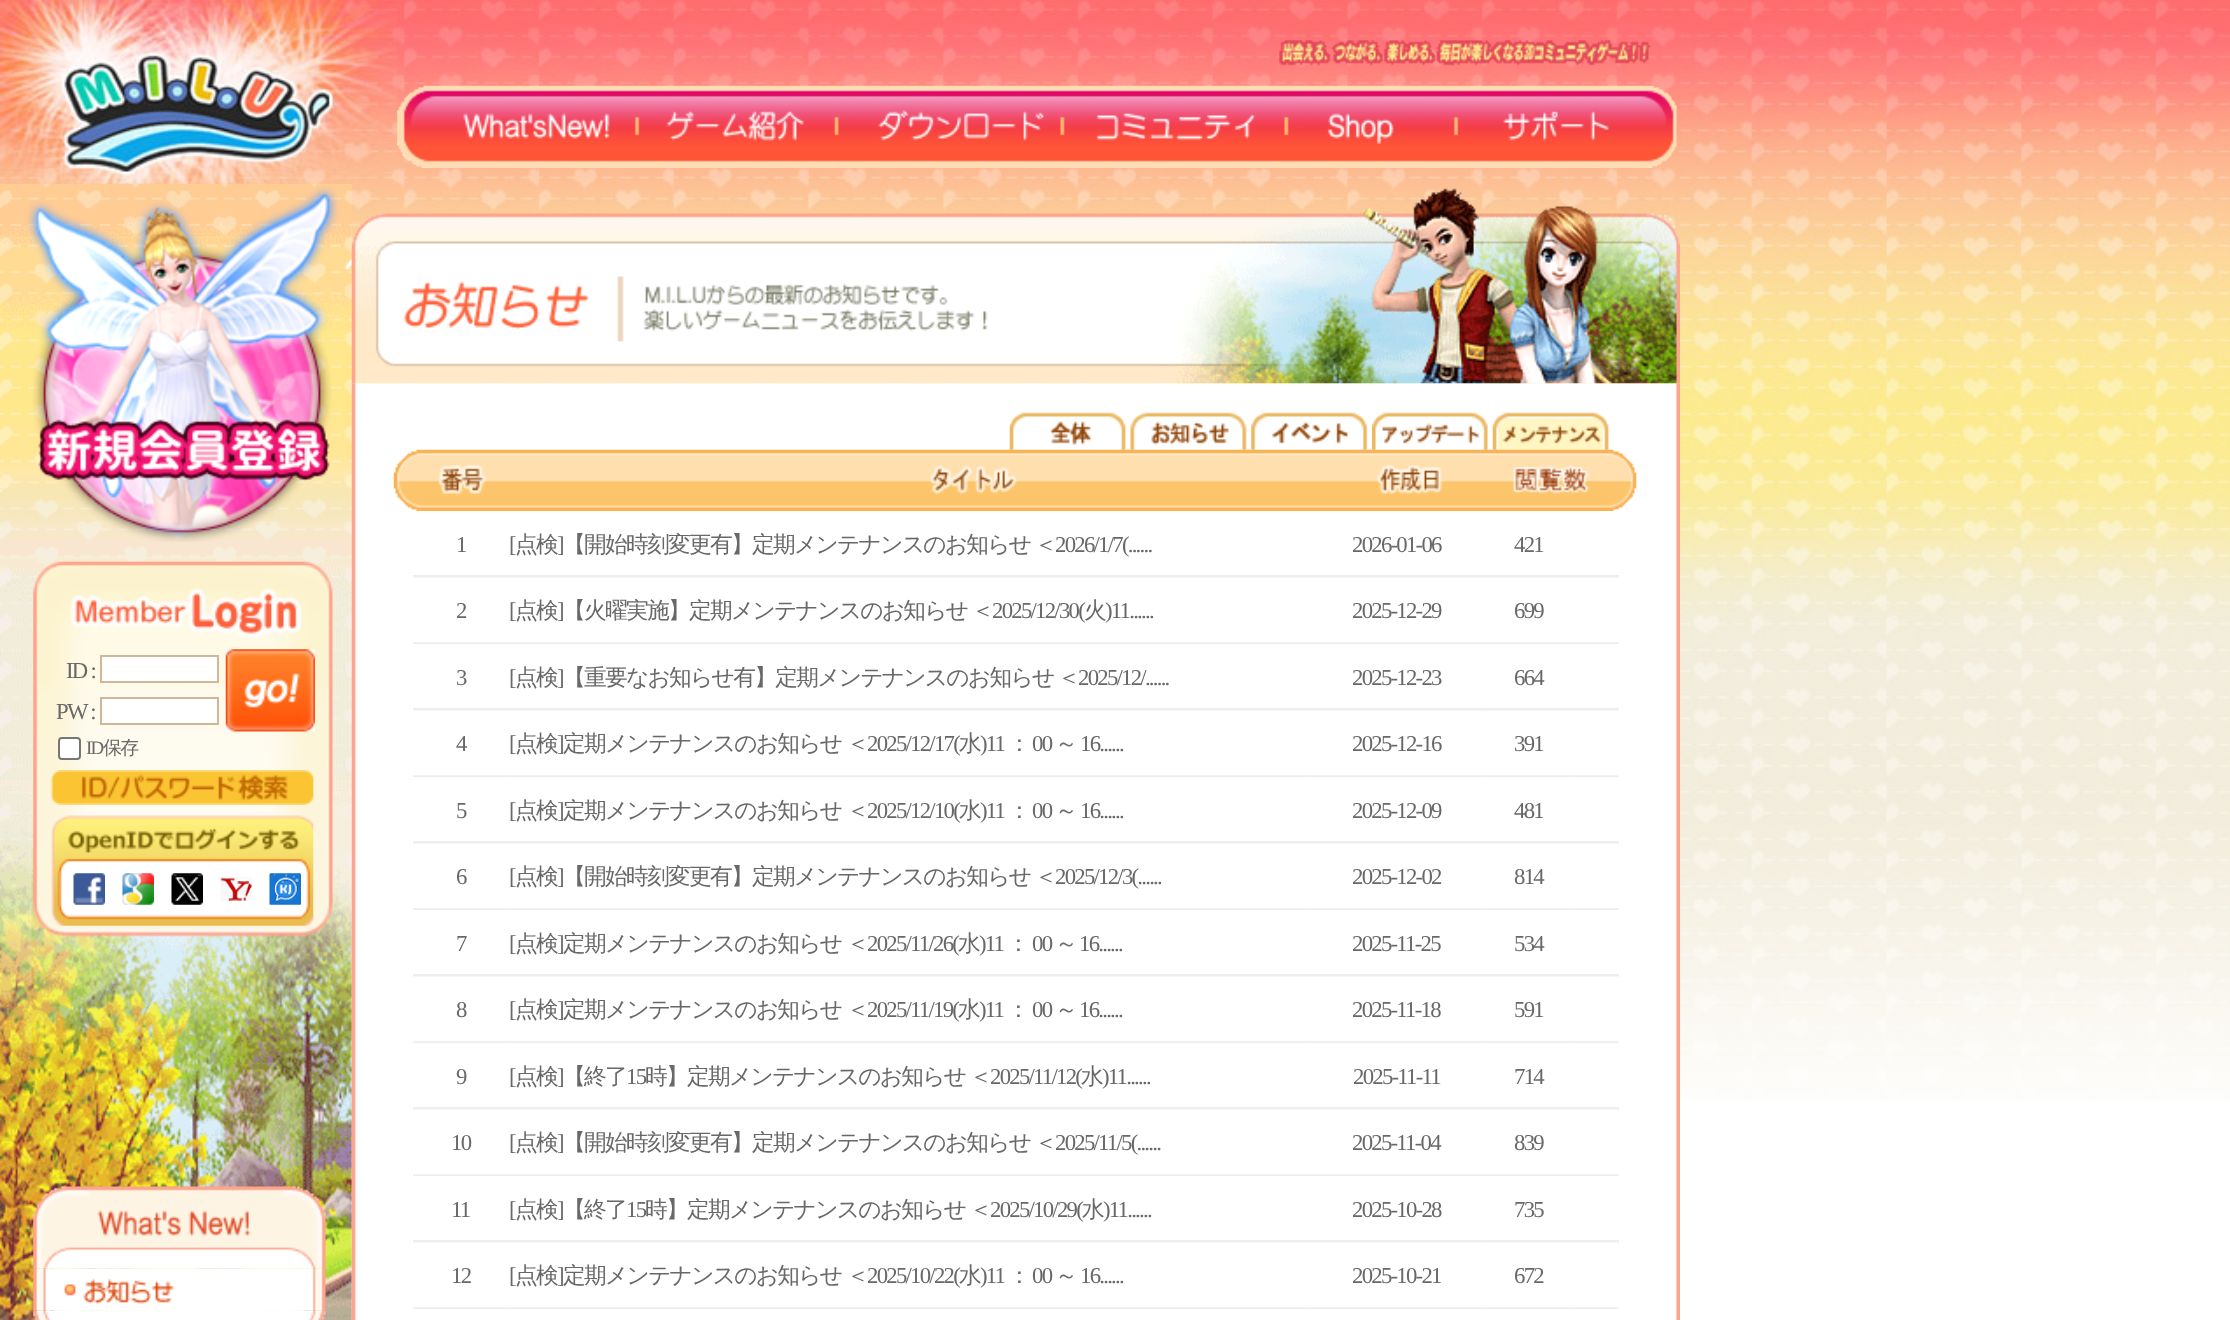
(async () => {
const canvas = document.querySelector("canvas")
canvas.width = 2230
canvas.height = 1320
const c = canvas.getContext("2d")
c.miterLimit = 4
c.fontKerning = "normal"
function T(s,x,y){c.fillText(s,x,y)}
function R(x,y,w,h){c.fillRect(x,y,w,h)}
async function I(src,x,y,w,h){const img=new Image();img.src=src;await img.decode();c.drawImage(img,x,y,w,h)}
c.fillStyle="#fff"
R(0,0,2230,1320)
await I("1.png",0,0,2230,1101)
await I("14.png",0,183,352,1137)
await I("2.png",33,561,300,376)
c.letterSpacing="-1.75px"
c.font="22.75px Liberation Serif"
c.fillStyle="#686868"
T("ID :",66,678)
c.fillStyle="#fff"
c.beginPath()
c.rect(101,656,117,26)
c.fill()
c.strokeStyle="#d1b697"
c.lineWidth=2
c.stroke()
await I("3.png",225,649,90,83)
c.fillStyle="#686868"
T("PW :",56,719)
c.fillStyle="#fff"
c.beginPath()
c.rect(101,698,117,26)
c.fill()
c.stroke()
c.beginPath()
c.roundRect(59,738,21,21,3)
c.fill()
c.strokeStyle="#767676"
c.stroke()
c.font="19px Liberation Serif"
c.fillStyle="#686868"
T("ID",86,754)
c.font="500 19px WenQuanYi Zen Hei"
T("保存",103,754)
await I("4.png",50,770,264,35)
await I("5.png",51,815,263,111)
await I("6.png",73,873,32,32)
await I("7.png",122,873,32,32)
await I("8.png",171,873,32,32)
await I("9.png",220,877,32,24)
await I("10.png",269,873,32,32)
await I("11.png",0,0,397,184)
await I("12.png",1279,40,372,26)
await I("13.png",397,85,1280,83)
await I("15.png",27,186,311,356)
await I("17.png",351,383,1329,937)
await I("16.png",351,188,1329,196)
await I("18.png",1009,412,117,38)
await I("19.png",1130,412,117,38)
await I("20.png",1251,412,117,38)
await I("21.png",1372,412,116,38)
await I("22.png",1492,412,117,38)
await I("23.png",393,449,1244,62)
c.fillStyle="#eee"
R(413,575,1206,3)
c.font="22.75px Liberation Serif"
c.fillStyle="#686868"
T("1",456,552)
T("[",509,552)
c.font="500 22.75px WenQuanYi Zen Hei"
T("点検",515,552)
c.font="22.75px Liberation Serif"
T("]",557,552)
c.wordSpacing="-1px"
c.font="500 22.75px WenQuanYi Zen Hei"
T("【開始時刻変更有】定期メンテナンスのお知らせ ＜",563,552)
c.wordSpacing="0px"
c.font="22.75px Liberation Serif"
T("2026/1/7(......",1055,552)
T("2026-01-06",1352,552)
T("421",1514,552)
await I("24.png",413,577,97,67)
T("2",456,618)
await I("25.png",509,577,797,67)
T("[",509,618)
c.font="500 22.75px WenQuanYi Zen Hei"
T("点検",515,618)
c.font="22.75px Liberation Serif"
T("]",557,618)
c.wordSpacing="-1px"
c.font="500 22.75px WenQuanYi Zen Hei"
T("【火曜実施】定期メンテナンスのお知らせ ＜",563,618)
c.wordSpacing="0px"
c.font="22.75px Liberation Serif"
T("2025/12/30(",992,618)
c.font="500 22.75px WenQuanYi Zen Hei"
T("火",1084,618)
c.font="22.75px Liberation Serif"
T(")11......",1105,618)
await I("26.png",1305,577,181,67)
T("2025-12-29",1352,618)
await I("27.png",1486,577,86,67)
T("699",1514,618)
await I("28.png",1571,577,48,67)
c.fillStyle="#eee"
R(413,708,1206,3)
c.fillStyle="#686868"
T("3",456,685)
T("[",509,685)
c.font="500 22.75px WenQuanYi Zen Hei"
T("点検",515,685)
c.font="22.75px Liberation Serif"
T("]",557,685)
c.wordSpacing="-1px"
c.font="500 22.75px WenQuanYi Zen Hei"
T("【重要なお知らせ有】定期メンテナンスのお知らせ ＜",563,685)
c.wordSpacing="0px"
c.font="22.75px Liberation Serif"
T("2025/12/......",1078,685)
T("2025-12-23",1352,685)
T("664",1514,685)
await I("24.png",413,710,97,67)
T("4",456,751)
await I("25.png",509,710,797,67)
T("[",509,751)
c.font="500 22.75px WenQuanYi Zen Hei"
T("点検",515,751)
c.font="22.75px Liberation Serif"
T("]",557,751)
c.font="500 22.75px WenQuanYi Zen Hei"
T("定期メンテナンスのお知らせ ＜",563,751)
c.font="22.75px Liberation Serif"
T("2025/12/17(",867,751)
c.font="500 22.75px WenQuanYi Zen Hei"
T("水",959,751)
c.font="22.75px Liberation Serif"
T(")11",980,751)
c.font="500 22.75px WenQuanYi Zen Hei"
T("：",1008,751)
c.font="22.75px Liberation Serif"
T("00",1032,751)
c.font="500 22.75px WenQuanYi Zen Hei"
T("～",1055,751)
c.font="22.75px Liberation Serif"
T("16......",1080,751)
await I("26.png",1305,710,181,67)
T("2025-12-16",1352,751)
await I("27.png",1486,710,86,67)
T("391",1514,751)
await I("28.png",1571,710,48,67)
c.fillStyle="#eee"
R(413,841,1206,3)
c.fillStyle="#686868"
T("5",456,818)
T("[",509,818)
c.font="500 22.75px WenQuanYi Zen Hei"
T("点検",515,818)
c.font="22.75px Liberation Serif"
T("]",557,818)
c.font="500 22.75px WenQuanYi Zen Hei"
T("定期メンテナンスのお知らせ ＜",563,818)
c.font="22.75px Liberation Serif"
T("2025/12/10(",867,818)
c.font="500 22.75px WenQuanYi Zen Hei"
T("水",959,818)
c.font="22.75px Liberation Serif"
T(")11",980,818)
c.font="500 22.75px WenQuanYi Zen Hei"
T("：",1008,818)
c.font="22.75px Liberation Serif"
T("00",1032,818)
c.font="500 22.75px WenQuanYi Zen Hei"
T("～",1055,818)
c.font="22.75px Liberation Serif"
T("16......",1080,818)
T("2025-12-09",1352,818)
T("481",1514,818)
await I("24.png",413,843,97,67)
T("6",456,884)
await I("25.png",509,843,797,67)
T("[",509,884)
c.font="500 22.75px WenQuanYi Zen Hei"
T("点検",515,884)
c.font="22.75px Liberation Serif"
T("]",557,884)
c.wordSpacing="-1px"
c.font="500 22.75px WenQuanYi Zen Hei"
T("【開始時刻変更有】定期メンテナンスのお知らせ ＜",563,884)
c.wordSpacing="0px"
c.font="22.75px Liberation Serif"
T("2025/12/3(......",1055,884)
await I("26.png",1305,843,181,67)
T("2025-12-02",1352,884)
await I("27.png",1486,843,86,67)
T("814",1514,884)
await I("28.png",1571,843,48,67)
c.fillStyle="#eee"
R(413,974,1206,3)
c.fillStyle="#686868"
T("7",456,951)
T("[",509,951)
c.font="500 22.75px WenQuanYi Zen Hei"
T("点検",515,951)
c.font="22.75px Liberation Serif"
T("]",557,951)
c.font="500 22.75px WenQuanYi Zen Hei"
T("定期メンテナンスのお知らせ ＜",563,951)
c.font="22.75px Liberation Serif"
T("2025/11/26(",867,951)
c.font="500 22.75px WenQuanYi Zen Hei"
T("水",958,951)
c.font="22.75px Liberation Serif"
T(")11",979,951)
c.font="500 22.75px WenQuanYi Zen Hei"
T("：",1007,951)
c.font="22.75px Liberation Serif"
T("00",1032,951)
c.font="500 22.75px WenQuanYi Zen Hei"
T("～",1055,951)
c.font="22.75px Liberation Serif"
T("16......",1079,951)
T("2025-11-25",1352,951)
T("534",1514,951)
await I("24.png",413,976,97,67)
T("8",456,1017)
await I("25.png",509,976,797,67)
T("[",509,1017)
c.font="500 22.75px WenQuanYi Zen Hei"
T("点検",515,1017)
c.font="22.75px Liberation Serif"
T("]",557,1017)
c.font="500 22.75px WenQuanYi Zen Hei"
T("定期メンテナンスのお知らせ ＜",563,1017)
c.font="22.75px Liberation Serif"
T("2025/11/19(",867,1017)
c.font="500 22.75px WenQuanYi Zen Hei"
T("水",958,1017)
c.font="22.75px Liberation Serif"
T(")11",979,1017)
c.font="500 22.75px WenQuanYi Zen Hei"
T("：",1007,1017)
c.font="22.75px Liberation Serif"
T("00",1032,1017)
c.font="500 22.75px WenQuanYi Zen Hei"
T("～",1055,1017)
c.font="22.75px Liberation Serif"
T("16......",1079,1017)
await I("26.png",1305,976,181,67)
T("2025-11-18",1352,1017)
await I("27.png",1486,976,86,67)
T("591",1514,1017)
await I("28.png",1571,976,48,67)
c.fillStyle="#eee"
R(413,1107,1206,3)
c.fillStyle="#686868"
T("9",456,1084)
T("[",509,1084)
c.font="500 22.75px WenQuanYi Zen Hei"
T("点検",515,1084)
c.font="22.75px Liberation Serif"
T("]",557,1084)
c.font="500 22.75px WenQuanYi Zen Hei"
T("【終了",563,1084)
c.font="22.75px Liberation Serif"
T("15",626,1084)
c.wordSpacing="-1px"
c.font="500 22.75px WenQuanYi Zen Hei"
T("時】定期メンテナンスのお知らせ ＜",645,1084)
c.wordSpacing="0px"
c.font="22.75px Liberation Serif"
T("2025/11/12(",990,1084)
c.font="500 22.75px WenQuanYi Zen Hei"
T("水",1081,1084)
c.font="22.75px Liberation Serif"
T(")11......",1102,1084)
T("2025-11-11",1353,1084)
T("714",1514,1084)
await I("24.png",413,1109,97,67)
T("10",451,1150)
await I("25.png",509,1109,797,67)
T("[",509,1150)
c.font="500 22.75px WenQuanYi Zen Hei"
T("点検",515,1150)
c.font="22.75px Liberation Serif"
T("]",557,1150)
c.wordSpacing="-1px"
c.font="500 22.75px WenQuanYi Zen Hei"
T("【開始時刻変更有】定期メンテナンスのお知らせ ＜",563,1150)
c.wordSpacing="0px"
c.font="22.75px Liberation Serif"
T("2025/11/5(......",1055,1150)
await I("26.png",1305,1109,181,67)
T("2025-11-04",1352,1150)
await I("27.png",1486,1109,86,67)
T("839",1514,1150)
await I("28.png",1571,1109,48,67)
c.fillStyle="#eee"
R(413,1240,1206,3)
c.fillStyle="#686868"
T("11",451,1217)
T("[",509,1217)
c.font="500 22.75px WenQuanYi Zen Hei"
T("点検",515,1217)
c.font="22.75px Liberation Serif"
T("]",557,1217)
c.font="500 22.75px WenQuanYi Zen Hei"
T("【終了",563,1217)
c.font="22.75px Liberation Serif"
T("15",626,1217)
c.wordSpacing="-1px"
c.font="500 22.75px WenQuanYi Zen Hei"
T("時】定期メンテナンスのお知らせ ＜",645,1217)
c.wordSpacing="0px"
c.font="22.75px Liberation Serif"
T("2025/10/29(",990,1217)
c.font="500 22.75px WenQuanYi Zen Hei"
T("水",1082,1217)
c.font="22.75px Liberation Serif"
T(")11......",1103,1217)
T("2025-10-28",1352,1217)
T("735",1514,1217)
await I("24.png",413,1242,97,67)
T("12",451,1283)
await I("25.png",509,1242,797,67)
T("[",509,1283)
c.font="500 22.75px WenQuanYi Zen Hei"
T("点検",515,1283)
c.font="22.75px Liberation Serif"
T("]",557,1283)
c.font="500 22.75px WenQuanYi Zen Hei"
T("定期メンテナンスのお知らせ ＜",563,1283)
c.font="22.75px Liberation Serif"
T("2025/10/22(",867,1283)
c.font="500 22.75px WenQuanYi Zen Hei"
T("水",959,1283)
c.font="22.75px Liberation Serif"
T(")11",980,1283)
c.font="500 22.75px WenQuanYi Zen Hei"
T("：",1008,1283)
c.font="22.75px Liberation Serif"
T("00",1032,1283)
c.font="500 22.75px WenQuanYi Zen Hei"
T("～",1055,1283)
c.font="22.75px Liberation Serif"
T("16......",1080,1283)
await I("26.png",1305,1242,181,67)
T("2025-10-21",1352,1283)
await I("27.png",1486,1242,86,67)
T("672",1514,1283)
await I("28.png",1571,1242,48,67)
await I("30.png",33,1268,293,43)
await I("29.png",33,1186,293,83)
await I("31.png",54,1268,251,43)
await I("32.png",33,1310,293,10)
})()
